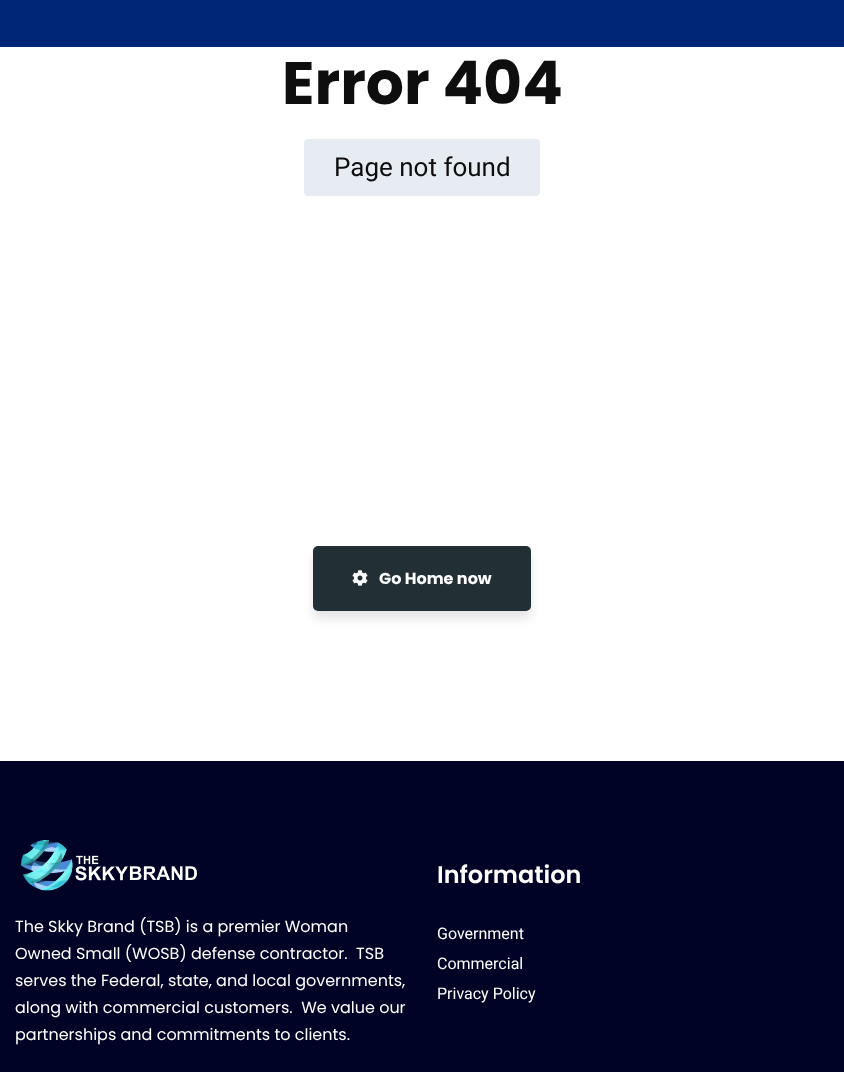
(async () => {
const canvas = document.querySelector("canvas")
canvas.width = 844
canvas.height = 1072
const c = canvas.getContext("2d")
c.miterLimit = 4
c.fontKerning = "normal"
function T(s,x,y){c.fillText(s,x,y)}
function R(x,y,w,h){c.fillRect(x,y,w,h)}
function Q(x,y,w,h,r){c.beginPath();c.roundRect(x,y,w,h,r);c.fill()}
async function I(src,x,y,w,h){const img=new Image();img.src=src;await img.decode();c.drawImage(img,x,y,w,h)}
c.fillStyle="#fff"
R(0,0,844,1072)
c.fillStyle="#002777"
R(0,0,844,47)
c.font="bold 60px Poppins"
c.fillStyle="#0e0e0e"
T("Error 404",282,104)
c.fillStyle="#e7ecf3"
Q(304,139,236,57,4)
c.font="26px Roboto"
c.fillStyle="#0e0e0e"
T("Page not found",334,176)
c.fillStyle="#0c0c0c1a"
c.filter="blur(5px)"
c.beginPath()
c.roundRect(313,554,218,65,5)
c.fill()
c.filter="none"
c.fillStyle="#223035"
Q(313,546,218,65,5)
await I("1.png",352,570,16,16)
c.font="bold 16px Poppins"
c.fillStyle="#fff"
T("Go Home now",379,584)
c.fillStyle="#000325"
R(0,761,844,311)
await I("2.png",21,840,177,51)
c.font="16px Poppins"
c.fillStyle="#fff"
T("The Skky Brand (TSB) is a premier Woman",15,932)
T("Owned Small (WOSB) defense contractor.  TSB",15,959)
T("serves the Federal, state, and local governments,",15,986)
T("along with commercial customers.  We value our",15,1013)
T("partnerships and commitments to clients.",15,1040)
c.font="600 24px Poppins"
T("Information",437,883)
c.font="16px Roboto"
T("Government",437,939)
T("Commercial",437,969)
T("Privacy Policy",437,999)
})()
